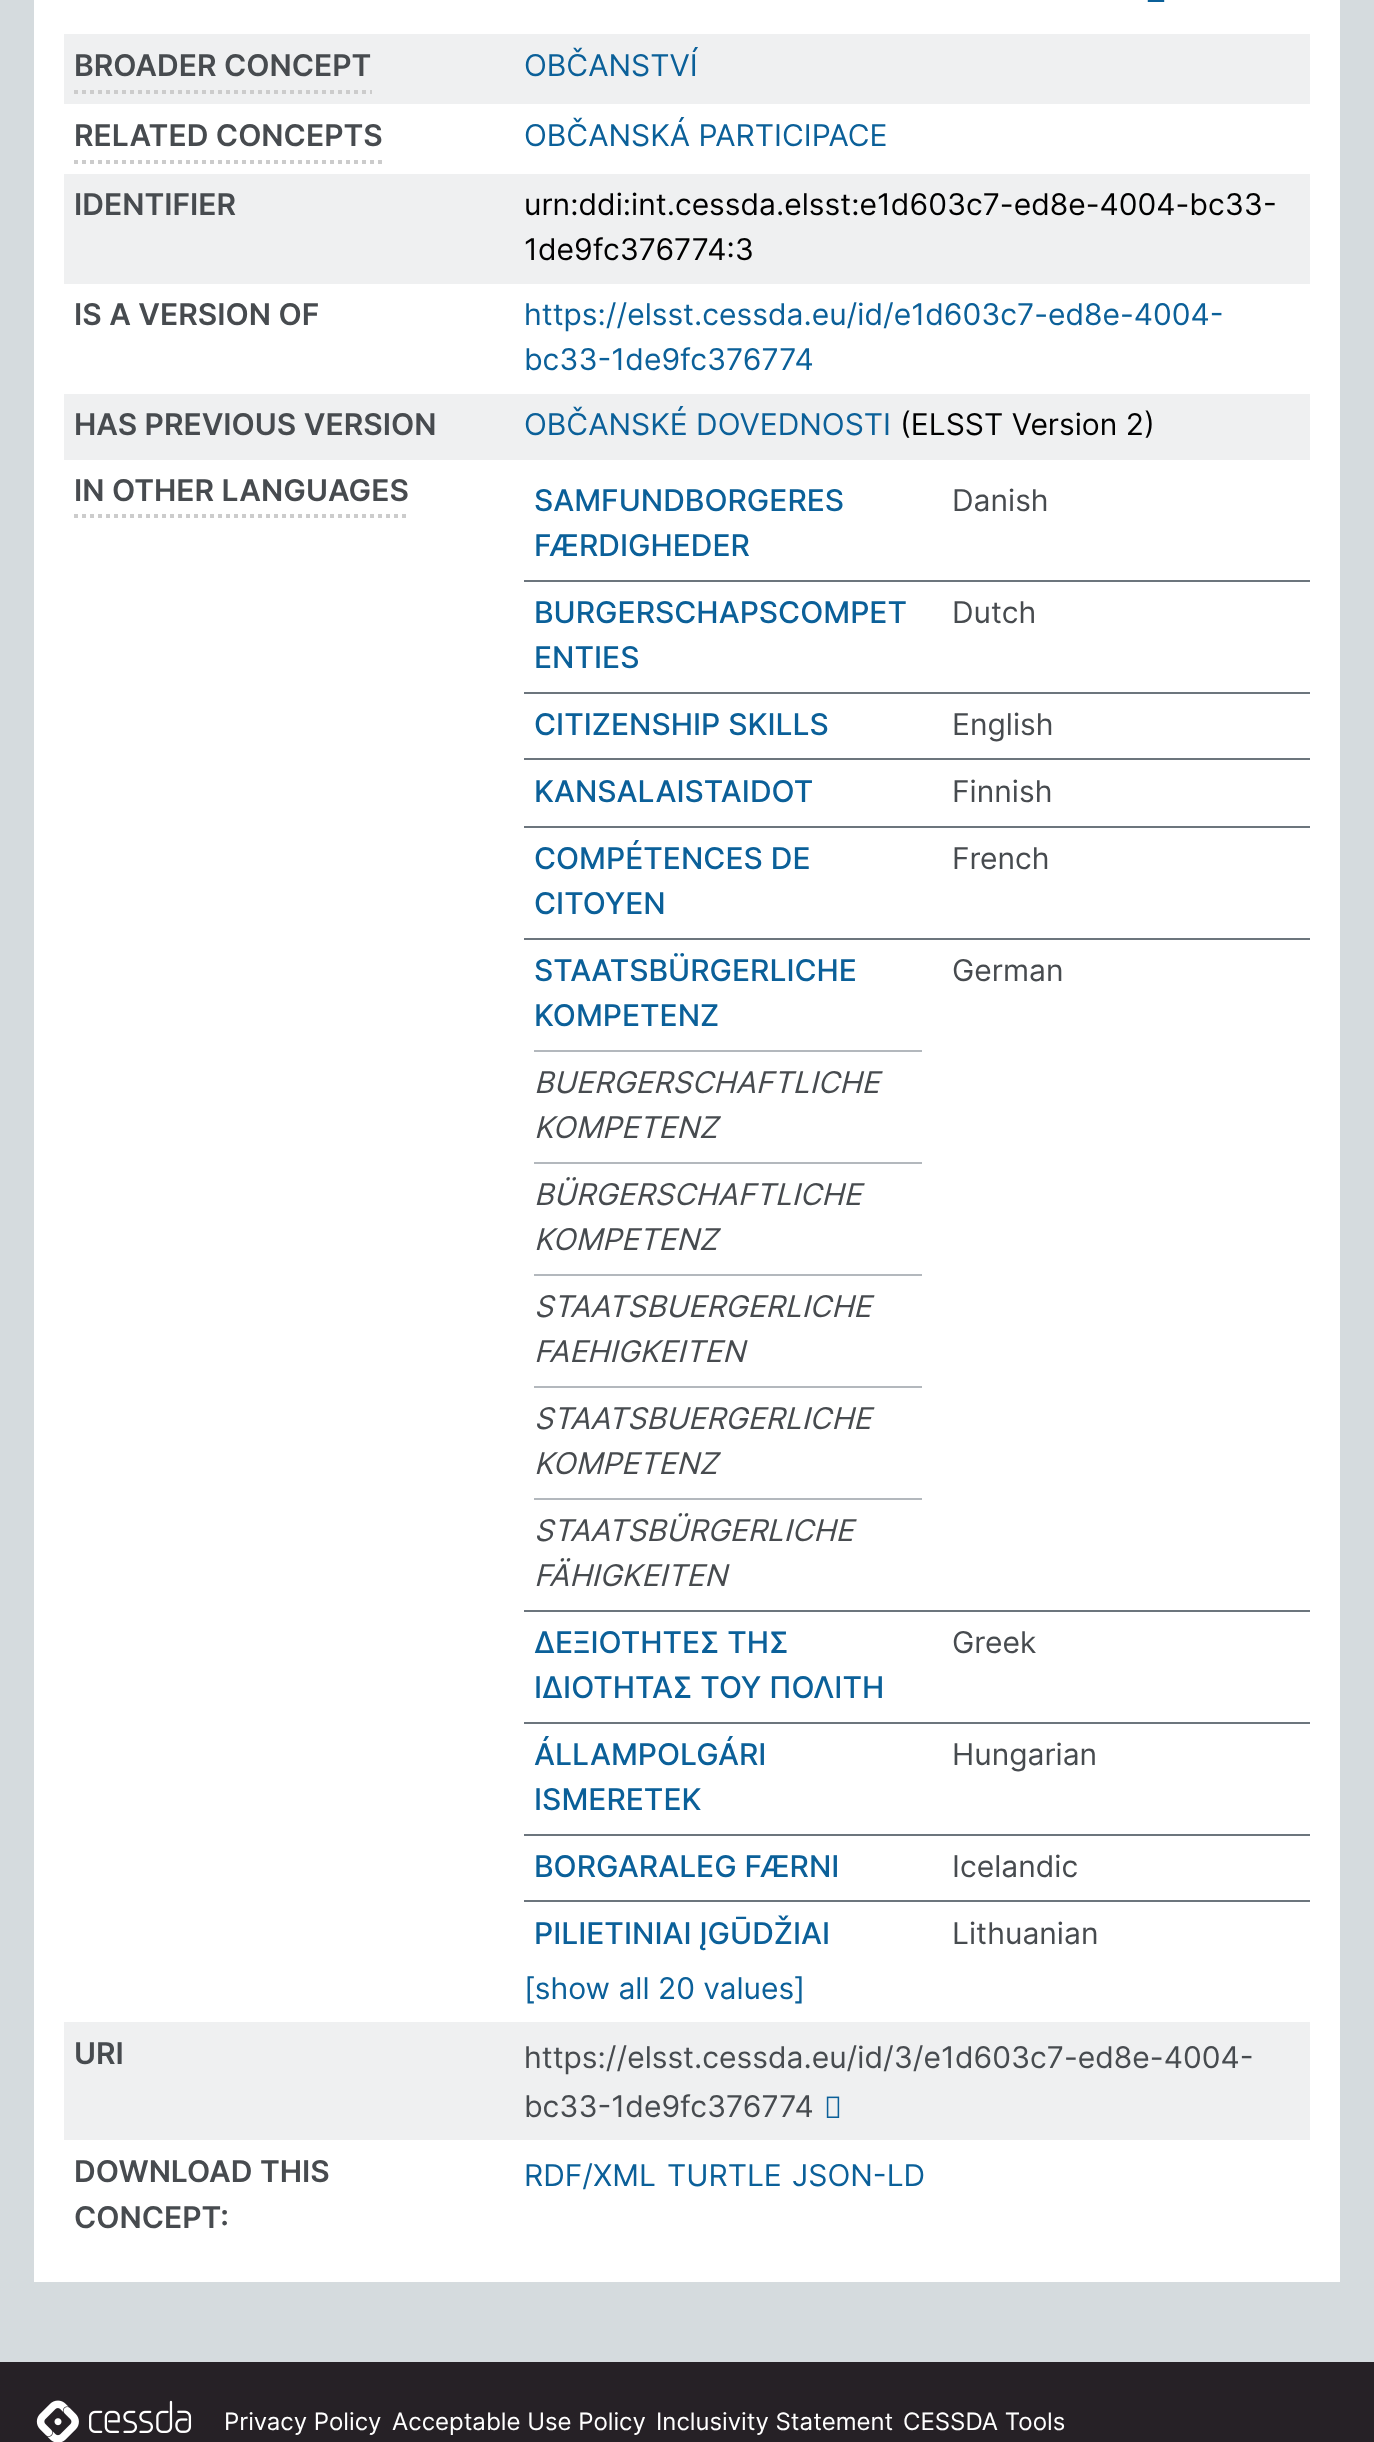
(async () => {
const canvas = document.querySelector("canvas")
canvas.width = 1374
canvas.height = 2442
const c = canvas.getContext("2d")
c.miterLimit = 4
c.fontKerning = "normal"
function T(s,x,y){c.fillText(s,x,y)}
function R(x,y,w,h){c.fillRect(x,y,w,h)}
async function I(src,x,y,w,h){const img=new Image();img.src=src;await img.decode();c.drawImage(img,x,y,w,h)}
let path
c.fillStyle="#d5dbde"
R(0,0,1374,2442)
c.fillStyle="#fff"
R(34,0,1306,2282)
await I("1.png",1147,0,18,2)
c.fillStyle="#eff0f1"
R(64,34,1246,70)
path = new Path2D("M74 92h298")
c.strokeStyle="#ccc"
c.lineWidth=4
c.setLineDash([4,4])
c.stroke(path)
c.font="600 30px Inter"
c.fillStyle="#474b4f"
T("BROADER CONCEPT",74,76)
c.font="30px Inter"
c.fillStyle="#0b6099"
T("OBČANSTVÍ",524,76)
path = new Path2D("M74 162h310")
c.stroke(path)
c.font="600 30px Inter"
c.fillStyle="#474b4f"
T("RELATED CONCEPTS",74,146)
c.font="30px Inter"
c.fillStyle="#0b6099"
T("OBČANSKÁ PARTICIPACE",524,146)
c.fillStyle="#eff0f1"
R(64,174,1246,110)
c.font="600 30px Inter"
c.fillStyle="#474b4f"
T("IDENTIFIER",74,215)
c.font="30px Inter"
c.fillStyle="#000"
T("urn:ddi:int.cessda.elsst:e1d603c7-ed8e-4004-bc33-",524,215)
T("1de9fc376774:3",524,260)
c.font="600 30px Inter"
c.fillStyle="#474b4f"
T("IS A VERSION OF",74,325)
c.font="30px Inter"
c.fillStyle="#0b6099"
T("https://elsst.cessda.eu/id/e1d603c7-ed8e-4004-",524,325)
T("bc33-1de9fc376774",524,370)
c.fillStyle="#eff0f1"
R(64,394,1246,66)
c.font="600 30px Inter"
c.fillStyle="#474b4f"
T("HAS PREVIOUS VERSION",74,435)
c.font="30px Inter"
c.fillStyle="#0b6099"
T("OBČANSKÉ DOVEDNOSTI",524,435)
c.fillStyle="#000"
T("(ELSST Version 2)",900,435)
path = new Path2D("M74 516h336")
c.stroke(path)
c.font="600 30px Inter"
c.fillStyle="#474b4f"
T("IN OTHER LANGUAGES",74,501)
c.font="500 30px Inter"
c.fillStyle="#0b6099"
T("SAMFUNDBORGERES",534,511)
T("FÆRDIGHEDER",534,556)
c.font="30px Inter"
c.fillStyle="#474b4f"
T("Danish",952,511)
c.fillStyle="#6c757d"
R(524,580,786,2)
c.font="500 30px Inter"
c.fillStyle="#0b6099"
T("BURGERSCHAPSCOMPET",534,623)
T("ENTIES",534,668)
c.font="30px Inter"
c.fillStyle="#474b4f"
T("Dutch",952,623)
c.fillStyle="#6c757d"
R(524,692,786,2)
c.font="500 30px Inter"
c.fillStyle="#0b6099"
T("CITIZENSHIP SKILLS",534,735)
c.font="30px Inter"
c.fillStyle="#474b4f"
T("English",952,735)
c.fillStyle="#6c757d"
R(524,758,786,2)
c.font="500 30px Inter"
c.fillStyle="#0b6099"
T("KANSALAISTAIDOT",534,802)
c.font="30px Inter"
c.fillStyle="#474b4f"
T("Finnish",952,802)
c.fillStyle="#6c757d"
R(524,826,786,2)
c.font="500 30px Inter"
c.fillStyle="#0b6099"
T("COMPÉTENCES DE",534,869)
T("CITOYEN",534,914)
c.font="30px Inter"
c.fillStyle="#474b4f"
T("French",952,869)
c.fillStyle="#6c757d"
R(524,938,786,2)
c.font="500 30px Inter"
c.fillStyle="#0b6099"
T("STAATSBÜRGERLICHE",534,981)
T("KOMPETENZ",534,1026)
c.font="30px Inter"
c.fillStyle="#474b4f"
T("German",952,981)
c.fillStyle="#b3b8bd"
R(534,1050,388,2)
c.font="italic 30px Inter"
c.fillStyle="#474b4f"
T("BUERGERSCHAFTLICHE",534,1093)
T("KOMPETENZ",534,1138)
c.fillStyle="#b3b8bd"
R(534,1162,388,2)
c.fillStyle="#474b4f"
T("BÜRGERSCHAFTLICHE",534,1205)
T("KOMPETENZ",534,1250)
c.fillStyle="#b3b8bd"
R(534,1274,388,2)
c.fillStyle="#474b4f"
T("STAATSBUERGERLICHE",534,1317)
T("FAEHIGKEITEN",534,1362)
c.fillStyle="#b3b8bd"
R(534,1386,388,2)
c.fillStyle="#474b4f"
T("STAATSBUERGERLICHE",534,1429)
T("KOMPETENZ",534,1474)
c.fillStyle="#b3b8bd"
R(534,1498,388,2)
c.fillStyle="#474b4f"
T("STAATSBÜRGERLICHE",534,1541)
T("FÄHIGKEITEN",534,1586)
c.fillStyle="#6c757d"
R(524,1610,786,2)
c.font="500 30px Inter"
c.fillStyle="#0b6099"
T("ΔΕΞΙΟΤΗΤΕΣ ΤΗΣ",534,1653)
T("ΙΔΙΟΤΗΤΑΣ ΤΟΥ ΠΟΛΙΤΗ",534,1698)
c.font="30px Inter"
c.fillStyle="#474b4f"
T("Greek",952,1653)
c.fillStyle="#6c757d"
R(524,1722,786,2)
c.font="500 30px Inter"
c.fillStyle="#0b6099"
T("ÁLLAMPOLGÁRI",534,1765)
T("ISMERETEK",534,1810)
c.font="30px Inter"
c.fillStyle="#474b4f"
T("Hungarian",952,1765)
c.fillStyle="#6c757d"
R(524,1834,786,2)
c.font="500 30px Inter"
c.fillStyle="#0b6099"
T("BORGARALEG FÆRNI",534,1877)
c.font="30px Inter"
c.fillStyle="#474b4f"
T("Icelandic",952,1877)
c.fillStyle="#6c757d"
R(524,1900,786,2)
c.font="500 30px Inter"
c.fillStyle="#0b6099"
T("PILIETINIAI ĮGŪDŽIAI",534,1944)
c.font="30px Inter"
c.fillStyle="#474b4f"
T("Lithuanian",952,1944)
c.fillStyle="#0b6099"
T("[show all 20 values]",524,1999)
c.fillStyle="#eff0f1"
R(64,2022,1246,118)
c.font="600 30px Inter"
c.fillStyle="#474b4f"
T("URI",74,2064)
c.font="30px Inter"
T("https://elsst.cessda.eu/id/3/e1d603c7-ed8e-4004-",524,2068)
T("bc33-1de9fc376774",524,2117)
await I("2.png",826,2096,14,22)
c.font="600 30px Inter"
T("DOWNLOAD THIS",74,2182)
T("CONCEPT:",74,2228)
c.font="30px Inter"
c.fillStyle="#0b6099"
T("RDF/XML",524,2186)
T("TURTLE",667,2186)
T("JSON-LD",792,2186)
c.fillStyle="#262126"
R(0,2362,1374,80)
await I("3.png",36,2400,156,42)
c.font="24px Inter"
c.fillStyle="#fff"
T("Privacy Policy",224,2430)
T("Acceptable Use Policy",392,2430)
T("Inclusivity Statement",656,2430)
T("CESSDA Tools",903,2430)
})()
